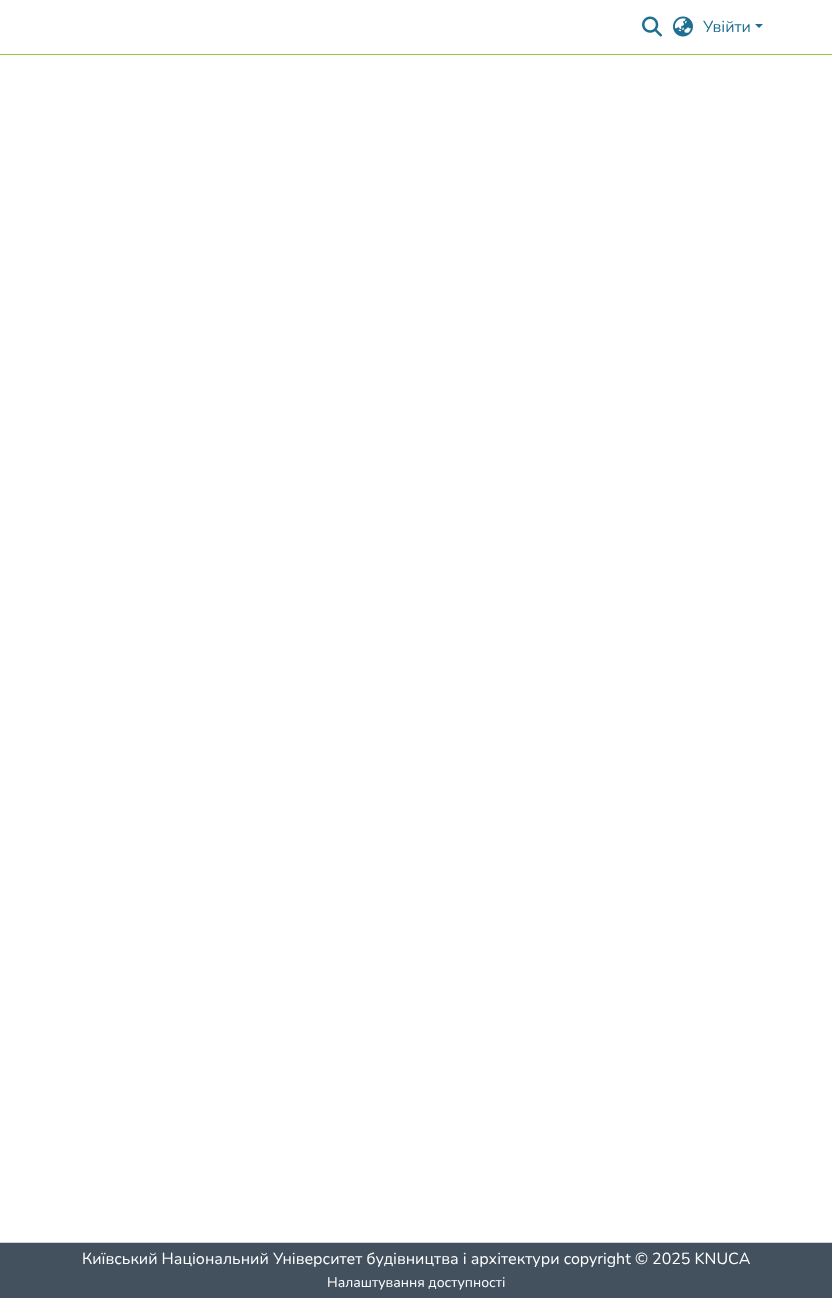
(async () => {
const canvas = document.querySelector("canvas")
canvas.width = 832
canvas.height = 1298
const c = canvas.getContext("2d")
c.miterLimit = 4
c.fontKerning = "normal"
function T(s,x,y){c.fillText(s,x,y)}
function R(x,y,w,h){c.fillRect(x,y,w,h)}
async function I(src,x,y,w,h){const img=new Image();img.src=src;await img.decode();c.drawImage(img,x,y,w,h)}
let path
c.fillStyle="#fff"
R(0,0,832,1298)
c.fillStyle="#92c642"
R(0,54,832,1)
await I("1.png",642,16,20,21)
await I("2.png",673,16,20,21)
c.font="16px Nunito"
c.fillStyle="#1e6f90"
T("Увійти",703,32)
path = new Path2D("M755 24h8l-4 4z")
c.fill(path)
c.fillStyle="#43515f"
R(0,1243,832,55)
c.fillStyle="#ced4da"
R(0,1242,832,1)
c.fillStyle="#fff"
T("Київський Національний Університет будівництва і архітектури copyright © 2025 KNUCA",82,1264)
c.font="14px Nunito"
T("Налаштування доступності",327,1287)
})()
